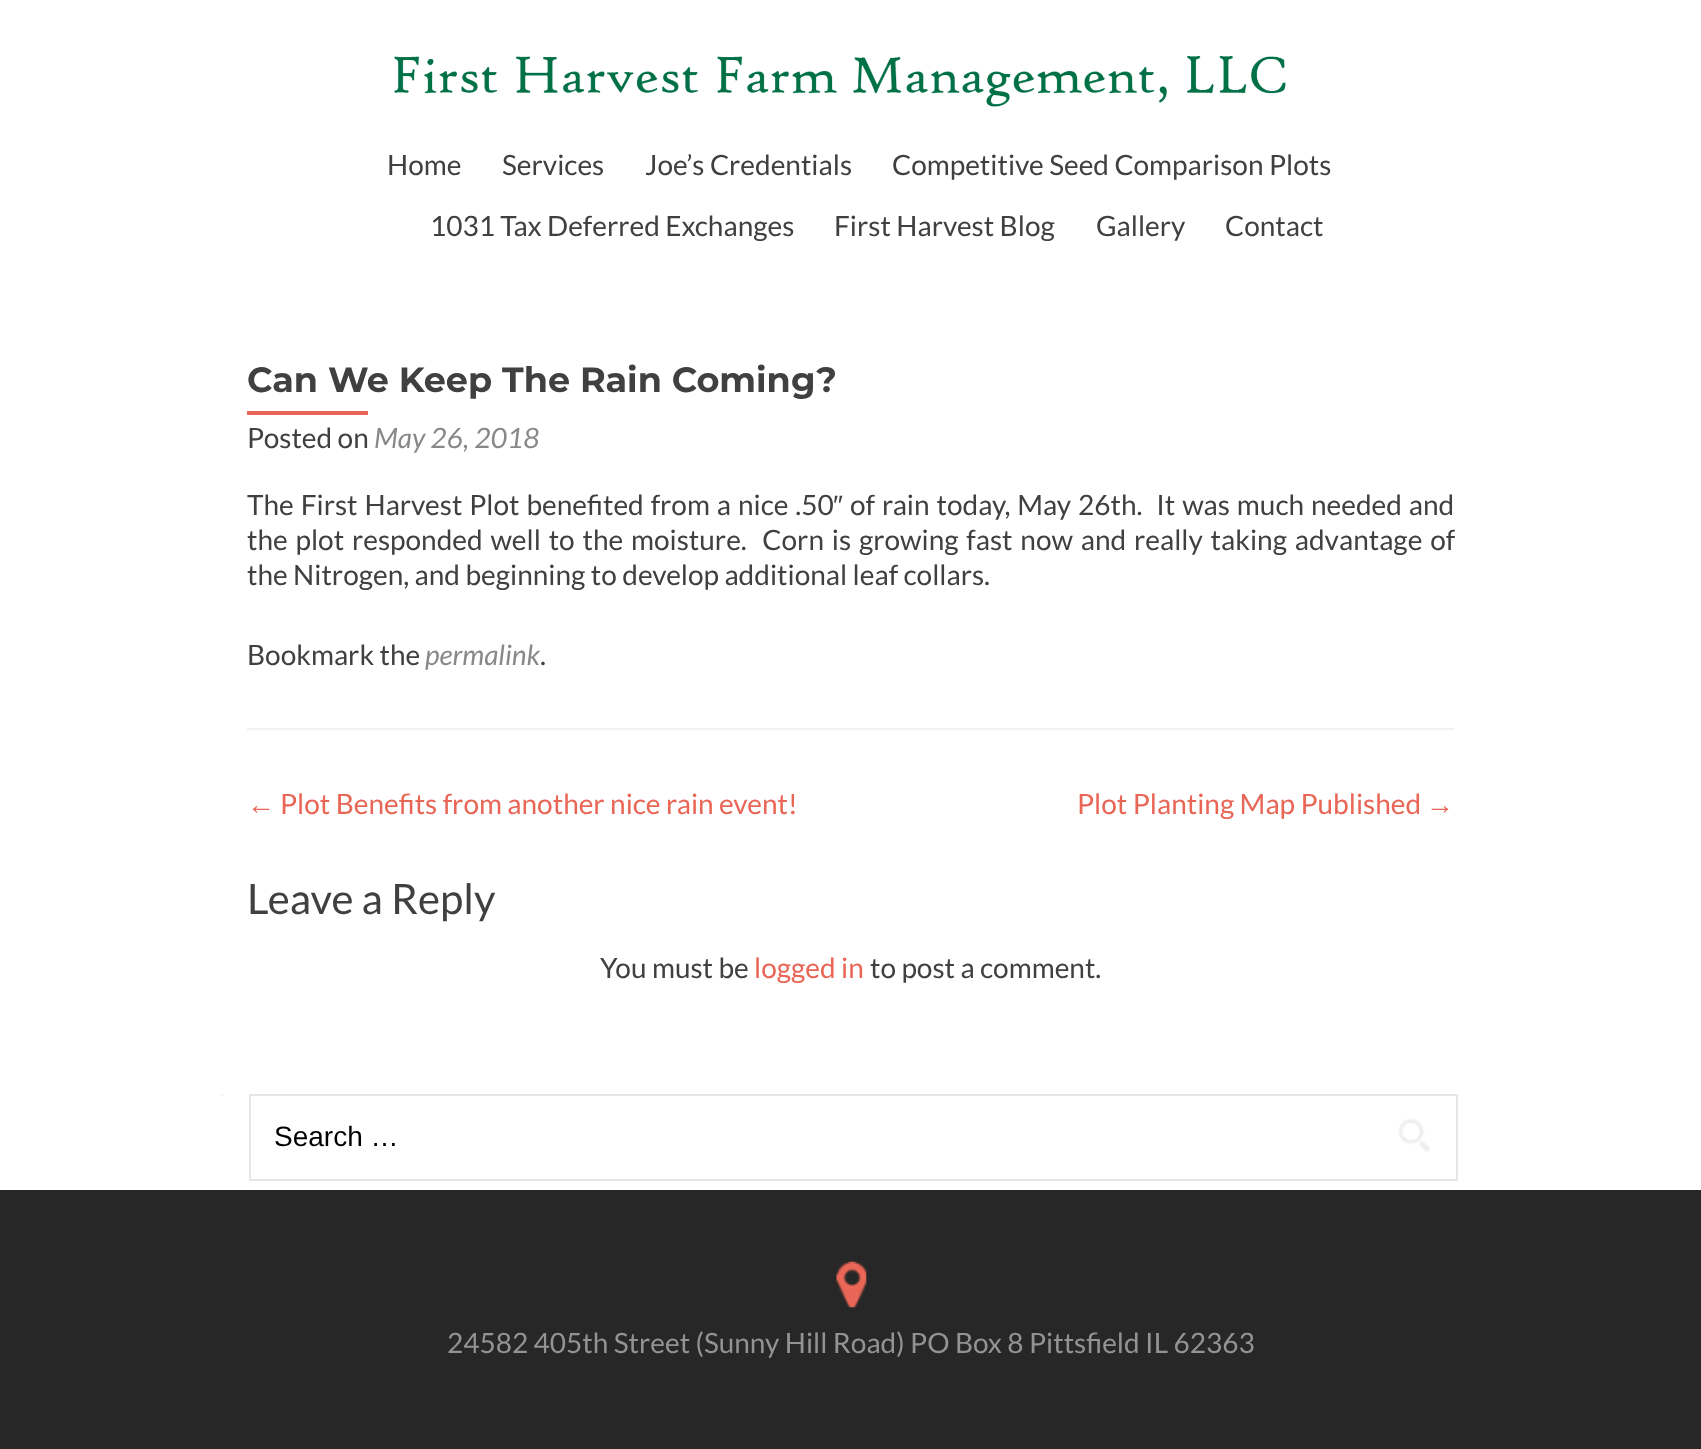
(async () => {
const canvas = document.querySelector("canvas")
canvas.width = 1701
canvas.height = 1449
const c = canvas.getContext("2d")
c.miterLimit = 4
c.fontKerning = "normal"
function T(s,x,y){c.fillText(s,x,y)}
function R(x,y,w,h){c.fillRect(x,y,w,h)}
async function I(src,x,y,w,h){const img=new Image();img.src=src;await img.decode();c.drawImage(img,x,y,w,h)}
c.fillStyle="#fff"
R(0,0,1701,1449)
await I("1.png",394,56,892,51)
c.font="28px Lato"
c.fillStyle="#404040"
T("Home",387,175)
T("Services",502,175)
T("Joe’s Credentials",645,175)
T("Competitive Seed Comparison Plots",892,175)
T("1031 Tax Deferred Exchanges",430,236)
T("First Harvest Blog",834,236)
T("Gallery",1096,236)
T("Contact",1225,236)
c.fillStyle="#f2f2f2"
R(247,728,1207,2)
c.font="bold 35px Montserrat"
c.fillStyle="#404040"
T("Can We Keep The Rain Coming?",247,392)
c.fillStyle="#e96656"
R(247,411,121,4)
c.font="28px Lato"
c.fillStyle="#404040"
T("Posted on",247,448)
c.font="italic 28px Lato"
c.fillStyle="#888"
T("May 26, 2018",374,448)
c.wordSpacing="1.5px"
c.font="28px Lato"
c.fillStyle="#404040"
T("The First Harvest Plot benefited from a nice .50",247,515)
c.wordSpacing="0px"
c.font="28px Liberation Sans"
T("″",833,515)
c.wordSpacing="1.5px"
c.font="28px Lato"
T("of rain today, May 26th.  It was much needed and",850,515)
c.wordSpacing="2.4px"
T("the plot responded well to the moisture.  Corn is growing fast now and really taking advantage of",247,550)
c.wordSpacing="0px"
T("the Nitrogen, and beginning to develop additional leaf collars.",247,585)
T("Bookmark the",247,665)
c.font="italic 28px Lato"
c.fillStyle="#888"
T("permalink",425,665)
c.font="28px Lato"
c.fillStyle="#404040"
T(".",540,665)
c.font="28px Liberation Sans"
c.fillStyle="#e96656"
T("←",247,814)
c.font="28px Lato"
T("Plot Benefits from another nice rain event!",280,814)
T("Plot Planting Map Published",1077,814)
c.font="28px Liberation Sans"
T("→",1426,814)
c.font="42px Lato"
c.fillStyle="#404040"
T("Leave a Reply",247,914)
c.font="28px Lato"
T("You must be",600,978)
c.fillStyle="#e96656"
T("logged in",754,978)
c.fillStyle="#404040"
T("to post a comment.",870,978)
c.fillStyle="#f2f2f2"
R(221,1094,2,2)
c.strokeStyle="#e6e6e6"
c.lineWidth=2
c.strokeRect(250,1095,1207,85)
c.font="28px Liberation Sans"
c.fillStyle="#000"
T("Search …",274,1146)
await I("2.png",1398,1118,32,34)
c.fillStyle="#272727"
R(0,1190,1701,259)
await I("3.png",836,1261,31,47)
c.font="28px Lato"
c.fillStyle="#939393"
T("24582 405th Street (Sunny Hill Road) PO Box 8 Pittsfield IL 62363",447,1353)
})()
